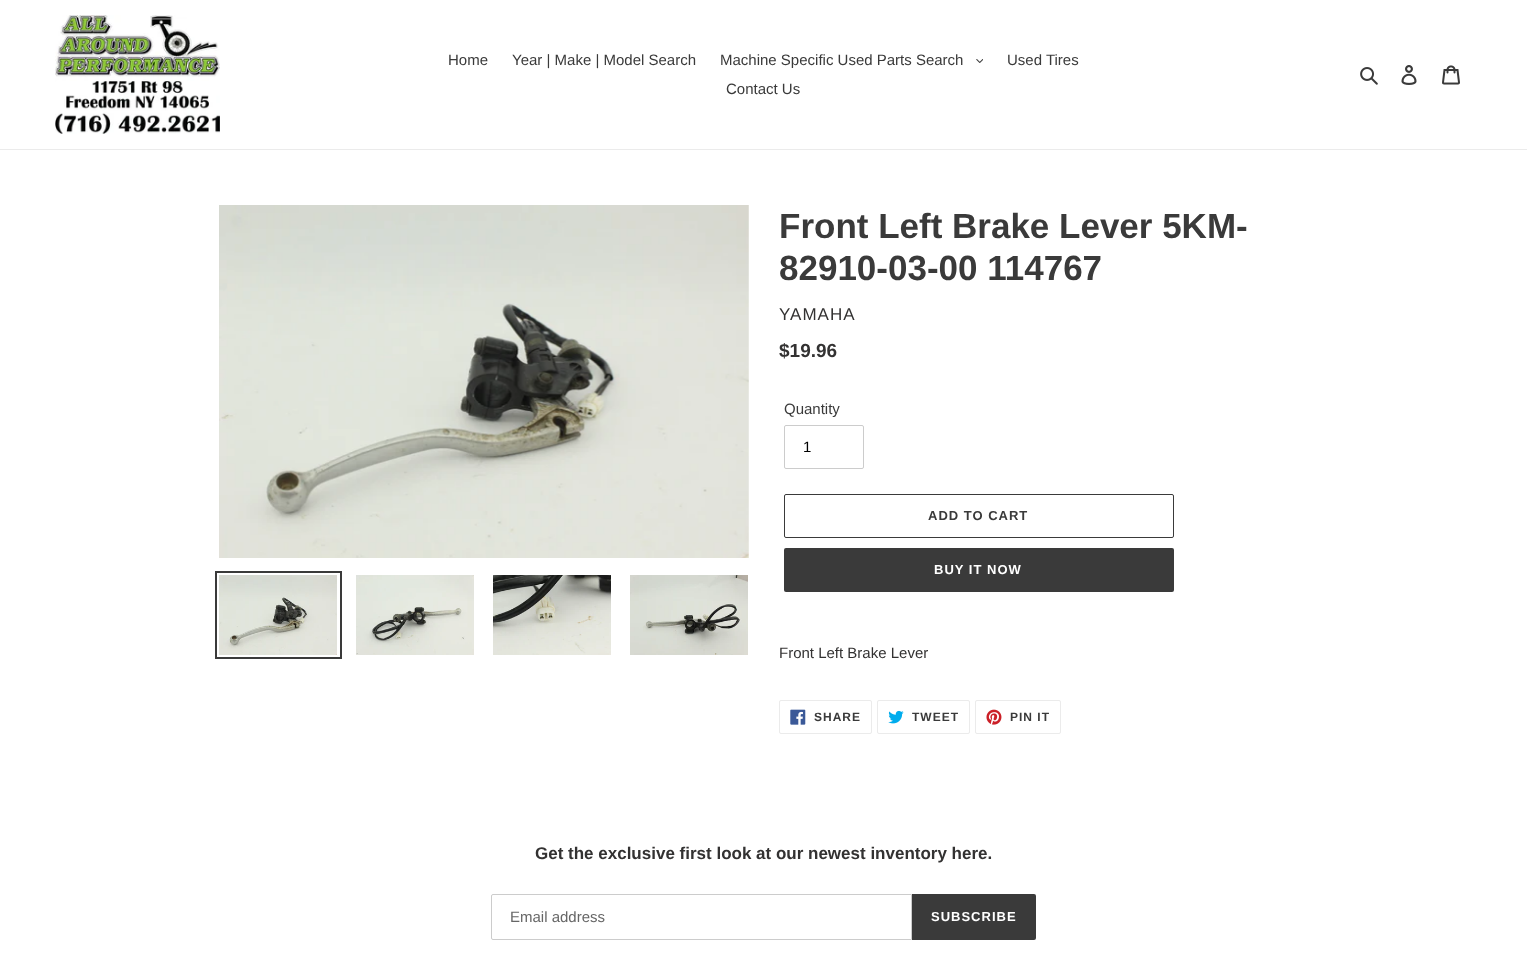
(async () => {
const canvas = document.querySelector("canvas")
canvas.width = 1527
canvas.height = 962
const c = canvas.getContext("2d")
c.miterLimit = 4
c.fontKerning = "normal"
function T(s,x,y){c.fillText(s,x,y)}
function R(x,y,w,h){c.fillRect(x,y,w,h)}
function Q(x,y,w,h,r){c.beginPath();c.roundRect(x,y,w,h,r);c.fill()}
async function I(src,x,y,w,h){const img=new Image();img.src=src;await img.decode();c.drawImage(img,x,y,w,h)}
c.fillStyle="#fff"
R(0,0,1527,962)
c.fillStyle="#ebebeb"
R(0,149,1527,1)
await I("1.png",55,15,165,119)
c.font="15px Liberation Sans"
c.fillStyle="#3a3a3a"
T("Home",448,65)
T("Year | Make | Model Search",512,65)
T("Machine Specific Used Parts Search",720,65)
await I("2.png",976,59,7,4)
T("Used Tires",1007,65)
T("Contact Us",726,94)
await I("3.png",1360,67,18,18)
await I("4.png",1401,65,16,20)
await I("5.png",1442,65,18,20)
await I("6.png",219,205,530,353)
c.strokeStyle="#3a3a3a"
c.lineWidth=2
c.strokeRect(216,572,125,86)
await I("7.png",219,575,118,80)
await I("8.png",356,575,118,80)
await I("9.png",493,575,118,80)
await I("10.png",630,575,118,80)
c.font="bold 35px Liberation Sans"
T("Front Left Brake Lever 5KM-",779,238)
T("82910-03-00 114767",779,280)
c.letterSpacing="1px"
c.font="17px Liberation Sans"
c.fillStyle="#333232"
T("YAMAHA",779,320)
c.letterSpacing="0px"
c.font="bold 19px Liberation Sans"
T("$19.96",779,357)
c.font="15px Liberation Sans"
c.fillStyle="#3a3a3a"
T("Quantity",784,414)
c.beginPath()
c.roundRect(784.5,425.5,79,43,1.5)
c.strokeStyle="#ccc"
c.lineWidth=1
c.stroke()
c.fillStyle="#000"
T("1",803,452)
c.beginPath()
c.roundRect(784.5,494.5,389,43,1.5)
c.strokeStyle="#3a3a3a"
c.stroke()
c.letterSpacing="1px"
c.font="bold 13px Liberation Sans"
c.fillStyle="#3a3a3a"
T("ADD TO CART",928,520)
Q(784,548,390,44,2)
c.fillStyle="#fff"
T("BUY IT NOW",934,574)
c.letterSpacing="0px"
c.font="15px Liberation Sans"
c.fillStyle="#333232"
T("Front Left Brake Lever",779,658)
c.beginPath()
c.roundRect(779.5,700.5,92,33,1.5)
c.strokeStyle="#ebebeb"
c.stroke()
await I("11.png",790,709,16,16)
c.letterSpacing="1px"
c.font="bold 12px Liberation Sans"
c.fillStyle="#3a3a3a"
T("SHARE",814,721)
c.beginPath()
c.roundRect(877.5,700.5,92,33,1.5)
c.stroke()
await I("12.png",888,710,16,14)
T("TWEET",912,721)
c.beginPath()
c.roundRect(975.5,700.5,85,33,1.5)
c.stroke()
await I("13.png",986,709,16,16)
T("PIN IT",1010,721)
c.letterSpacing="0px"
c.font="bold 17px Liberation Sans"
c.fillStyle="#333232"
T("Get the exclusive first look at our newest inventory here.",535,859)
c.beginPath()
c.roundRect(491.5,894.5,420,45,[1.5,0,0,1.5])
c.strokeStyle="#ccc"
c.stroke()
c.font="15px Liberation Sans"
c.fillStyle="#666"
T("Email address",510,922)
c.fillStyle="#3a3a3a"
c.beginPath()
c.roundRect(912,894,124,46,[0,2,2,0])
c.fill()
c.letterSpacing="1px"
c.font="bold 13px Liberation Sans"
c.fillStyle="#fff"
T("SUBSCRIBE",931,921)
})()
